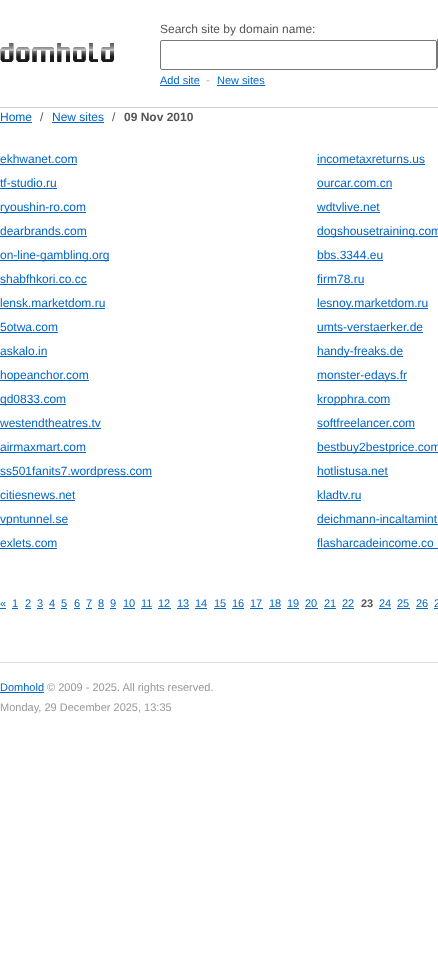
(async () => {
const canvas = document.querySelector("canvas")
canvas.width = 438
canvas.height = 976
const c = canvas.getContext("2d")
c.miterLimit = 4
c.fontKerning = "normal"
function T(s,x,y){c.fillText(s,x,y)}
function R(x,y,w,h){c.fillRect(x,y,w,h)}
async function I(src,x,y,w,h){const img=new Image();img.src=src;await img.decode();c.drawImage(img,x,y,w,h)}
c.fillStyle="#fff"
R(0,0,438,976)
await I("1.png",0,43,114,19)
c.font="12px Liberation Sans"
c.fillStyle="#555"
T("Search site by domain name:",160,33)
c.beginPath()
c.roundRect(160.5,40.5,276,29,1.5)
c.strokeStyle="#767676"
c.stroke()
c.beginPath()
c.roundRect(437.5,38.5,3,30,1.5)
c.stroke()
c.font="11px Liberation Sans"
c.fillStyle="#06c"
T("Add site",160,84)
R(160,85,40,1)
c.font="12px Liberation Sans"
c.fillStyle="#b6b6b6"
T("-",206,84)
c.font="11px Liberation Sans"
c.fillStyle="#06c"
T("New sites",217,84)
R(217,85,48,1)
c.fillStyle="#ccc"
R(0,107,438,1)
c.font="12px Liberation Sans"
c.fillStyle="#06c"
T("Home",0,121)
R(0,122,32,1)
c.fillStyle="#555"
T("/",40,121)
c.fillStyle="#06c"
T("New sites",52,121)
R(52,122,52,1)
c.fillStyle="#555"
T("/",112,121)
c.font="bold 12px Liberation Sans"
T("09 Nov 2010",124,121)
c.font="12px Liberation Sans"
c.fillStyle="#06c"
T("ekhwanet.com",0,163)
R(0,164,77,1)
T("incometaxreturns.us",317,163)
R(317,164,108,1)
T("tf-studio.ru",0,187)
R(0,188,57,1)
T("ourcar.com.cn",317,187)
R(317,188,75,1)
R(0,212,86,1)
T("ryoushin-ro.com",0,211)
T("wdtvlive.net",317,211)
R(317,212,63,1)
T("dearbrands.com",0,235)
R(0,236,87,1)
R(317,236,121,1)
T("dogshousetraining.com",317,235)
R(0,260,109,1)
T("on-line-gambling.org",0,259)
T("bbs.3344.eu",317,259)
R(317,260,66,1)
T("shabfhkori.co.cc",0,283)
R(0,284,87,1)
T("firm78.ru",317,283)
R(317,284,47,1)
T("lensk.marketdom.ru",0,307)
R(0,308,105,1)
R(317,308,111,1)
T("lesnoy.marketdom.ru",317,307)
T("5otwa.com",0,331)
R(0,332,58,1)
T("umts-verstaerker.de",317,331)
R(317,332,106,1)
T("askalo.in",0,355)
R(0,356,47,1)
R(317,356,86,1)
T("handy-freaks.de",317,355)
R(0,380,89,1)
T("hopeanchor.com",0,379)
R(317,380,90,1)
T("monster-edays.fr",317,379)
R(0,404,66,1)
T("qd0833.com",0,403)
R(317,404,73,1)
T("kropphra.com",317,403)
T("westendtheatres.tv",0,427)
R(0,428,101,1)
T("softfreelancer.com",317,427)
R(317,428,98,1)
T("airmaxmart.com",0,451)
R(0,452,86,1)
R(317,452,121,1)
T("bestbuy2bestprice.com",317,451)
R(0,476,152,1)
T("ss501fanits7.wordpress.com",0,475)
T("hotlistusa.net",317,475)
R(317,476,71,1)
T("citiesnews.net",0,499)
R(0,500,75,1)
T("kladtv.ru",317,499)
R(317,500,44,1)
R(0,524,68,1)
T("vpntunnel.se",0,523)
T("deichmann-incaltamint",317,523)
R(317,524,121,1)
T("exlets.com",0,547)
R(0,548,57,1)
T("flasharcadeincome.co",317,547)
R(317,548,121,1)
c.font="11px Liberation Sans"
T("«",0,607)
R(0,608,6,1)
T("1",12,607)
R(12,608,6,1)
T("2",25,607)
R(25,608,6,1)
T("3",37,607)
R(37,608,6,1)
T("4",49,607)
R(49,608,6,1)
T("5",61,607)
R(61,608,6,1)
T("6",74,607)
R(74,608,6,1)
T("7",86,607)
R(86,608,6,1)
T("8",98,607)
R(98,608,6,1)
T("9",110,607)
R(110,608,6,1)
T("10",123,607)
R(123,608,12,1)
T("11",141,607)
R(141,608,11,1)
T("12",158,607)
R(158,608,13,1)
T("13",177,607)
R(177,608,12,1)
T("14",195,607)
R(195,608,12,1)
T("15",214,607)
R(214,608,12,1)
T("16",232,607)
R(232,608,12,1)
T("17",250,607)
R(250,608,13,1)
T("18",269,607)
R(269,608,12,1)
T("19",287,607)
R(287,608,12,1)
T("20",305,607)
R(305,608,13,1)
T("21",324,607)
R(324,608,12,1)
T("22",342,607)
R(342,608,12,1)
c.font="bold 11px Liberation Sans"
c.fillStyle="#555"
T("23",361,607)
c.font="11px Liberation Sans"
c.fillStyle="#06c"
T("24",379,607)
R(379,608,12,1)
T("25",397,607)
R(397,608,13,1)
T("26",416,607)
R(416,608,12,1)
T("2",434,607)
R(434,608,4,1)
c.fillStyle="#e2e2e2"
R(0,662,438,1)
c.fillStyle="#06c"
T("Domhold",0,691)
R(0,692,44,1)
c.fillStyle="#999"
T("© 2009 - 2025. All rights reserved.",47,691)
T("Monday, 29 December 2025, 13:35",0,711)
})()
